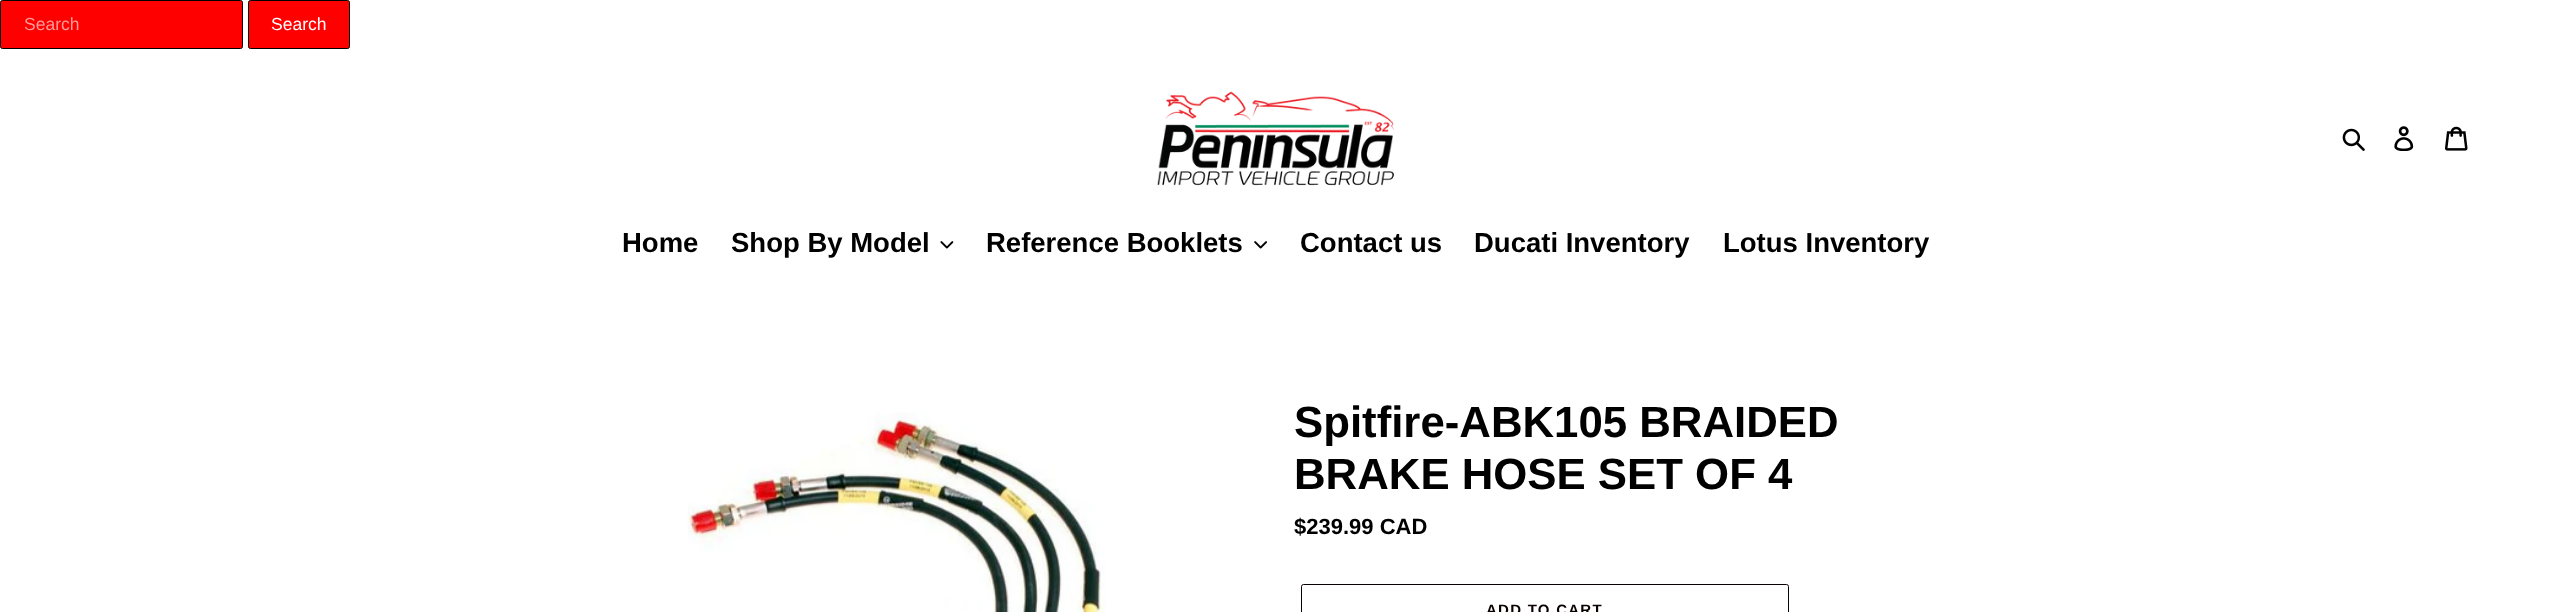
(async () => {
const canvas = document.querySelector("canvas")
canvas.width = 2551
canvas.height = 612
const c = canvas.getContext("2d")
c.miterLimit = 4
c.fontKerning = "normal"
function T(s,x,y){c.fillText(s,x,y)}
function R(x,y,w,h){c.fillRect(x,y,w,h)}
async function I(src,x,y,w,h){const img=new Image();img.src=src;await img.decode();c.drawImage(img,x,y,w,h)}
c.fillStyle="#fff"
R(0,0,2551,612)
c.fillStyle="#f00"
c.beginPath()
c.roundRect(.5,.5,242,48,2)
c.fill()
c.strokeStyle="#000"
c.stroke()
c.font="17.5px Liberation Sans"
c.fillStyle="#f99"
T("Search",24,30)
c.fillStyle="#f00"
c.beginPath()
c.roundRect(248.5,.5,101,48,2)
c.fill()
c.stroke()
c.fillStyle="#fff"
T("Search",271,30)
await I("1.png",1157,91,237,95)
await I("2.png",2342,128,23,23)
await I("3.png",2394,126,20,25)
await I("4.png",2445,126,23,25)
c.font="bold 27.5px Liberation Sans"
c.fillStyle="#000"
T("Home",622,252)
T("Shop By Model",731,252)
await I("5.png",940,241,14,8)
T("Reference Booklets",986,252)
await I("6.png",1254,241,13,8)
T("Contact us",1300,252)
T("Ducati Inventory",1474,252)
T("Lotus Inventory",1723,252)
await I("7.png",686,412,420,200)
c.font="bold 43.75px Liberation Sans"
T("Spitfire-ABK105 BRAIDED",1294,437)
T("BRAKE HOSE SET OF 4",1294,489)
c.font="bold 22px Liberation Sans"
T("$239.99 CAD",1294,534)
c.beginPath()
c.roundRect(1301.5,584.5,487,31,2)
c.strokeStyle="#0b0101"
c.stroke()
c.letterSpacing="1.25px"
c.font="bold 15px Liberation Sans"
c.fillStyle="#0b0101"
T("ADD TO CART",1486,615)
})()
